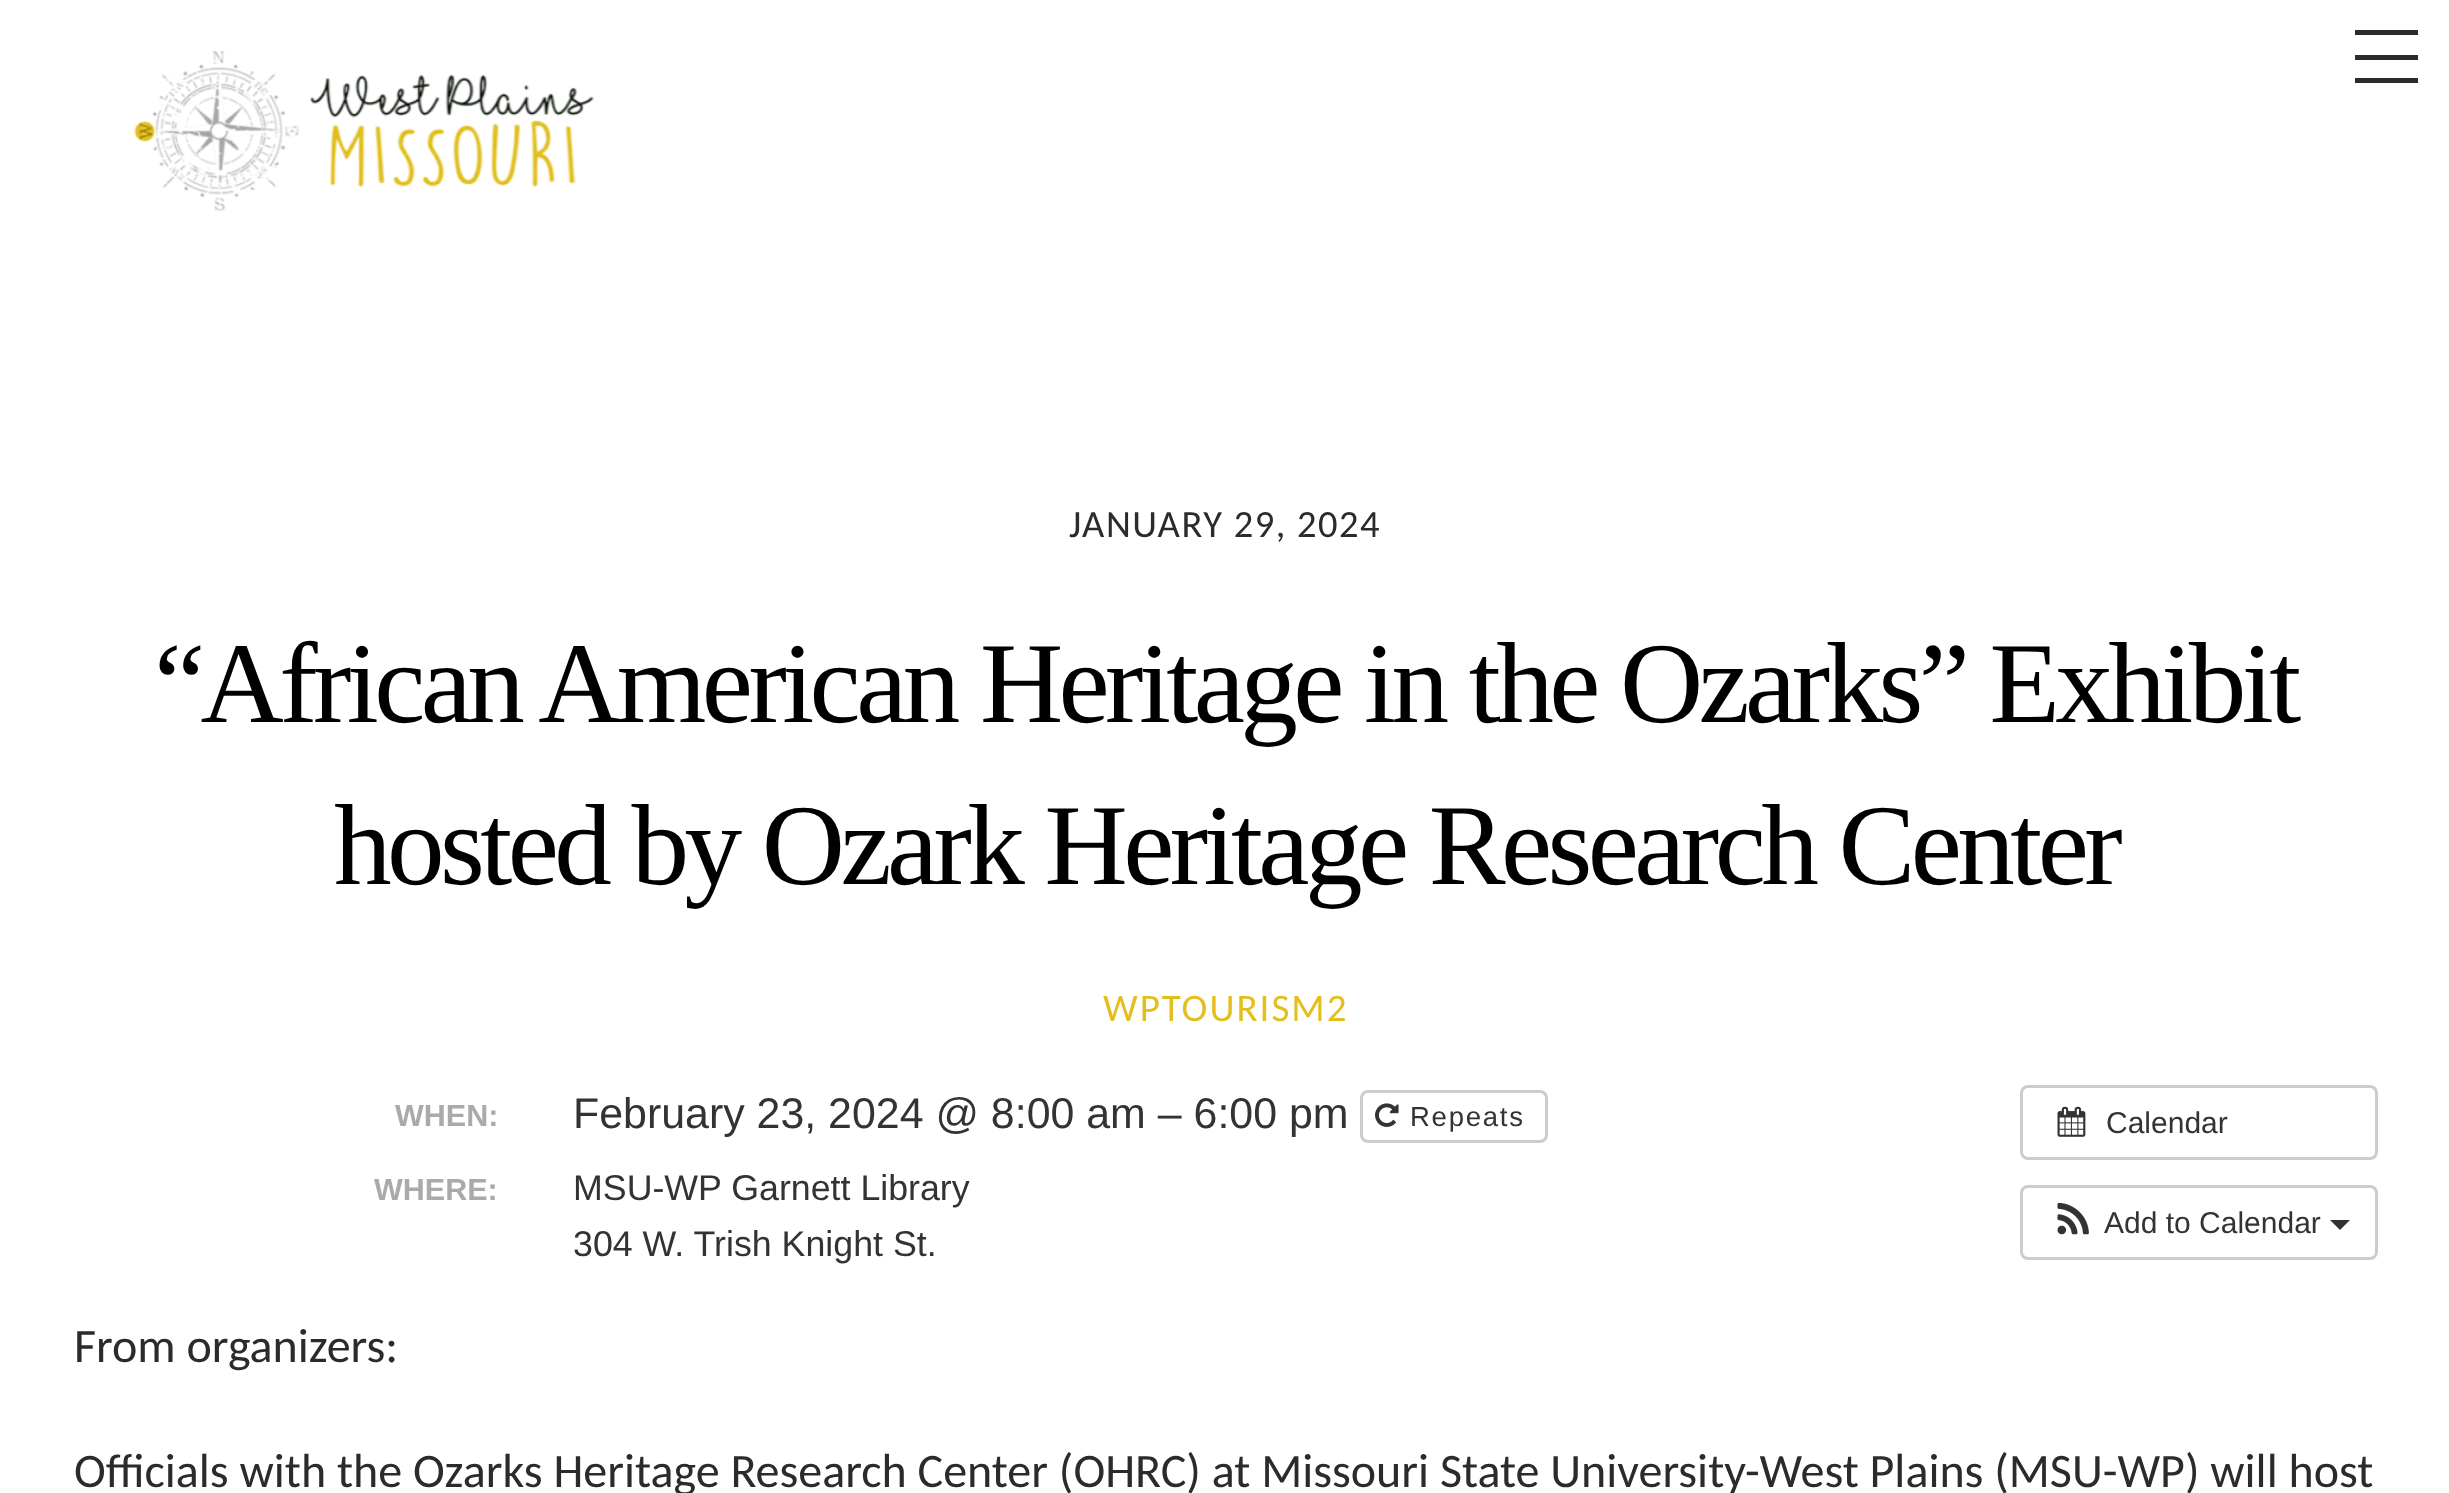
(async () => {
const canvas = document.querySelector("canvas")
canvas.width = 2449
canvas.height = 1493
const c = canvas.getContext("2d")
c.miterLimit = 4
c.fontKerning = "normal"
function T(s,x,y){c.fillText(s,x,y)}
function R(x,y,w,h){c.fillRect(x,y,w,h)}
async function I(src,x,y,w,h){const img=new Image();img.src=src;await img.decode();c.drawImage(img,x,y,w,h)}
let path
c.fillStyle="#fff"
R(0,0,2449,1493)
await I("1.png",134,50,460,162)
c.fillStyle="#2b2b2b"
R(2355,78,63,5)
R(2355,30,63,5)
R(2355,55,63,5)
c.letterSpacing="1.5px"
c.font="38.5px Carlito"
T("JANUARY 29, 2024",1069,537)
c.letterSpacing="-4.6px"
c.font="115.25px Liberation Serif"
c.fillStyle="#000"
T("“African American Heritage in the Ozarks” Exhibit",154,722)
T("hosted by Ozark Heritage Research Center",334,884)
c.letterSpacing="2px"
c.font="39px Carlito"
c.fillStyle="#e3bf1d"
T("WPTOURISM2",1103,1021)
c.letterSpacing="0px"
c.font="bold 30.5px Liberation Sans"
c.fillStyle="#aaa"
T("WHEN:",395,1126)
c.font="42.9px Liberation Sans"
c.fillStyle="#333"
T("February 23, 2024 @ 8:00 am – 6:00 pm",573,1128)
c.beginPath()
c.roundRect(1361.5,1091.5,185,50,6.5)
c.strokeStyle="#ccc"
c.lineWidth=3
c.stroke()
await I("2.png",1375,1103,24,24)
c.letterSpacing="1.75px"
c.font="27.5px Liberation Sans"
T("Repeats",1410,1126)
c.letterSpacing="0px"
c.font="bold 30.5px Liberation Sans"
c.fillStyle="#aaa"
T("WHERE:",374,1200)
c.font="35.75px Liberation Sans"
c.fillStyle="#333"
T("MSU-WP Garnett Library",573,1200)
T("304 W. Trish Knight St.",573,1256)
c.beginPath()
c.roundRect(2021.5,1086.5,355,72,6.5)
c.stroke()
await I("3.png",2057,1106,29,31)
c.font="30px Liberation Sans"
T("Calendar",2106,1133)
c.beginPath()
c.roundRect(2021.5,1186.5,355,72,6.5)
c.stroke()
await I("4.png",2057,1202,32,33)
T("Add to Calendar",2104,1233)
path = new Path2D("M2330 1220h20l-10 10z")
c.fill(path)
c.font="48px Carlito"
c.fillStyle="#2b2b2b"
T("From organizers:",74,1362)
T("Officials with the Ozarks Heritage Research Center (OHRC) at Missouri State University-West Plains (MSU-WP) will host",74,1487)
})()
